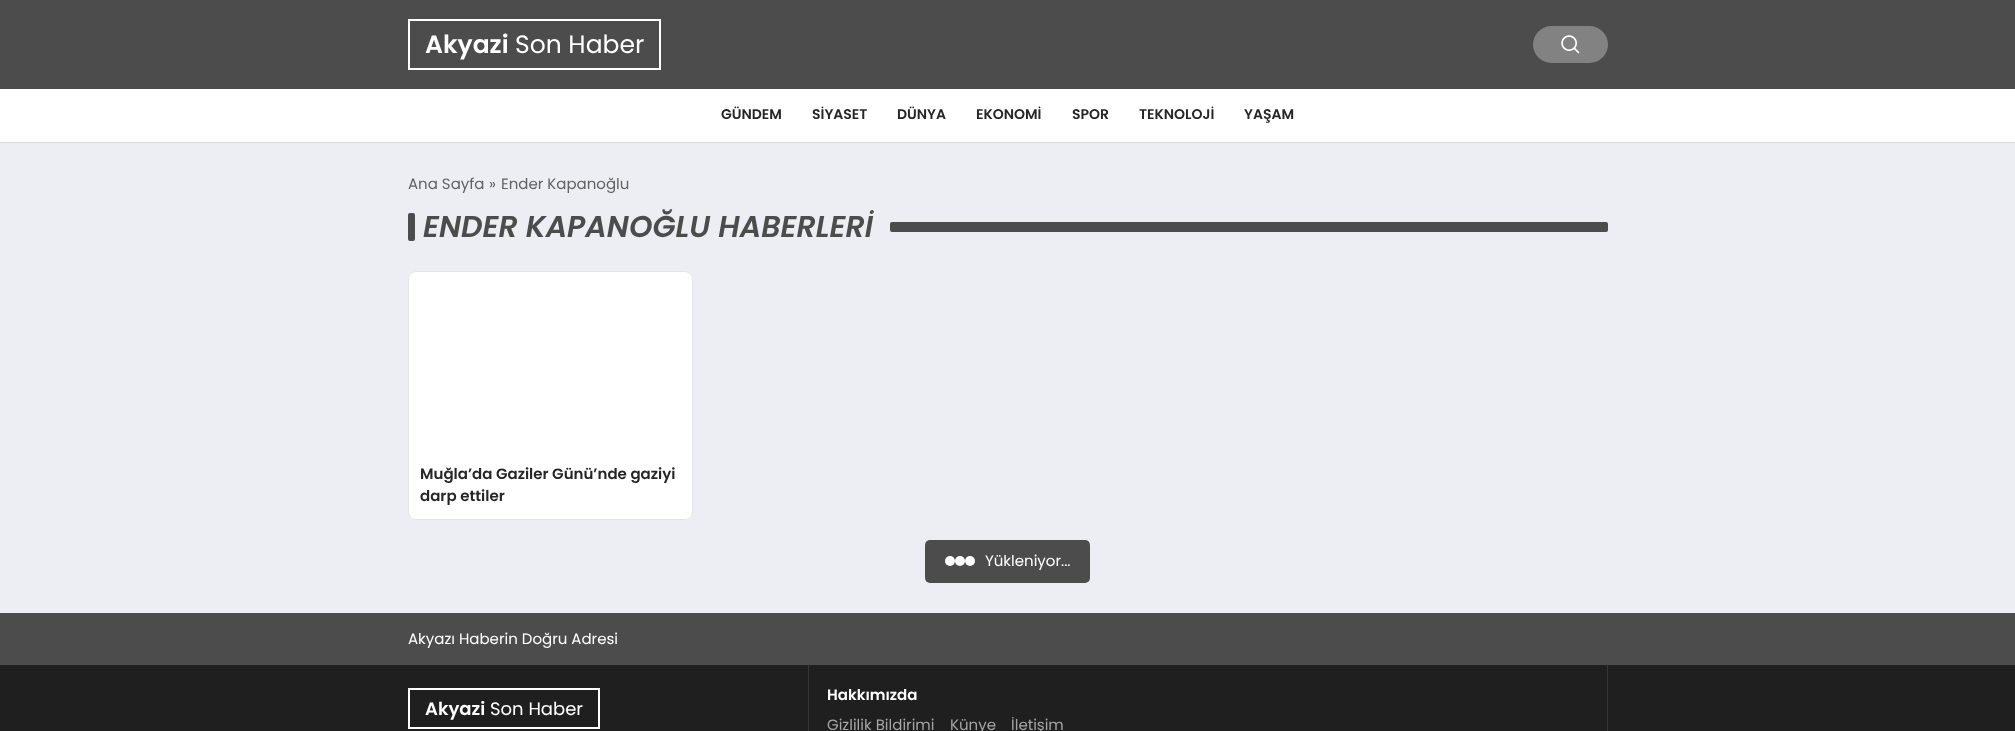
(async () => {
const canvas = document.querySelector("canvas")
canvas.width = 2015
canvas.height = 731
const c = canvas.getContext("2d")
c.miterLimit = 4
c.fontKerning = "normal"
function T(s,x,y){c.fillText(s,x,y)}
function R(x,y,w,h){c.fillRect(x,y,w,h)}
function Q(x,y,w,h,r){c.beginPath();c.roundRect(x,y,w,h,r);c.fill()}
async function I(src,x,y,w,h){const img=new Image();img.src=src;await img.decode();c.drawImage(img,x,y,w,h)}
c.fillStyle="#ededf4"
R(0,0,2015,731)
c.fillStyle="#4d4c4c"
R(0,0,2015,89)
c.strokeStyle="#fff"
c.lineWidth=2
c.strokeRect(409,20,251,49)
c.font="600 25px Poppins"
c.fillStyle="#fff"
T("Akyazi",425,53)
c.font="25px Poppins"
T("Son Haber",515,53)
c.fillStyle="#828282"
Q(1533,26,75,37,18.5)
await I("1.png",1561,35,19,19)
c.fillStyle="#fff"
R(0,89,2015,53)
c.fillStyle="#d9d9d9"
R(0,142,2015,1)
c.font="600 14px Poppins"
c.fillStyle="#262626"
T("GÜNDEM",721,119)
T("SİYASET",812,119)
T("DÜNYA",897,119)
T("EKONOMİ",976,119)
T("SPOR",1072,119)
T("TEKNOLOJİ",1139,119)
T("YAŞAM",1244,119)
c.font="15px Poppins"
c.fillStyle="#626264"
T("Ana Sayfa",408,189)
T("»",489,189)
T("Ender Kapanoğlu",501,189)
c.fillStyle="#4d4c4c"
Q(408,213,7,28,2)
c.font="italic 600 30px Poppins"
T("ENDER KAPANOĞLU HABERLERİ",423,237)
Q(890,222,718,10,2)
c.fillStyle="#fff"
Q(408,271,285,249,8)
c.beginPath()
c.roundRect(408.5,271.5,284,248,7.5)
c.strokeStyle="#0000001a"
c.lineWidth=1
c.stroke()
c.font="600 15px Poppins"
c.fillStyle="#262626"
T("Muğla’da Gaziler Günü’nde gaziyi",420,479)
T("darp ettiler",420,501)
c.fillStyle="#4d4c4c"
Q(925,540,165,43,5)
c.fillStyle="#fff"
c.beginPath()
c.arc(950,561,5,0,7)
c.fill()
c.beginPath()
c.arc(960,561,5,0,7)
c.fill()
c.beginPath()
c.arc(970,561,5,0,7)
c.fill()
c.font="15px Poppins"
T("Yükleniyor...",985,566)
c.fillStyle="#4d4c4c"
R(0,613,2015,52)
c.fillStyle="#fff"
T("Akyazı Haberin Doğru Adresi",408,644)
c.fillStyle="#1f1f1f"
R(0,665,2015,66)
c.strokeStyle="#fff"
c.lineWidth=2
c.strokeRect(409,689,190,39)
c.font="600 18px Poppins"
c.fillStyle="#fff"
T("Akyazi",425,715)
c.font="18px Poppins"
T("Son Haber",490,715)
c.fillStyle="#353535"
R(1607,665,1,66)
R(808,665,1,66)
c.font="600 15px Poppins"
c.fillStyle="#fff"
T("Hakkımızda",827,700)
c.font="15px Poppins"
c.fillStyle="#a5a5a5"
T("Gizlilik Bildirimi",827,730)
T("Künye",950,730)
T("İletişim",1011,730)
})()
